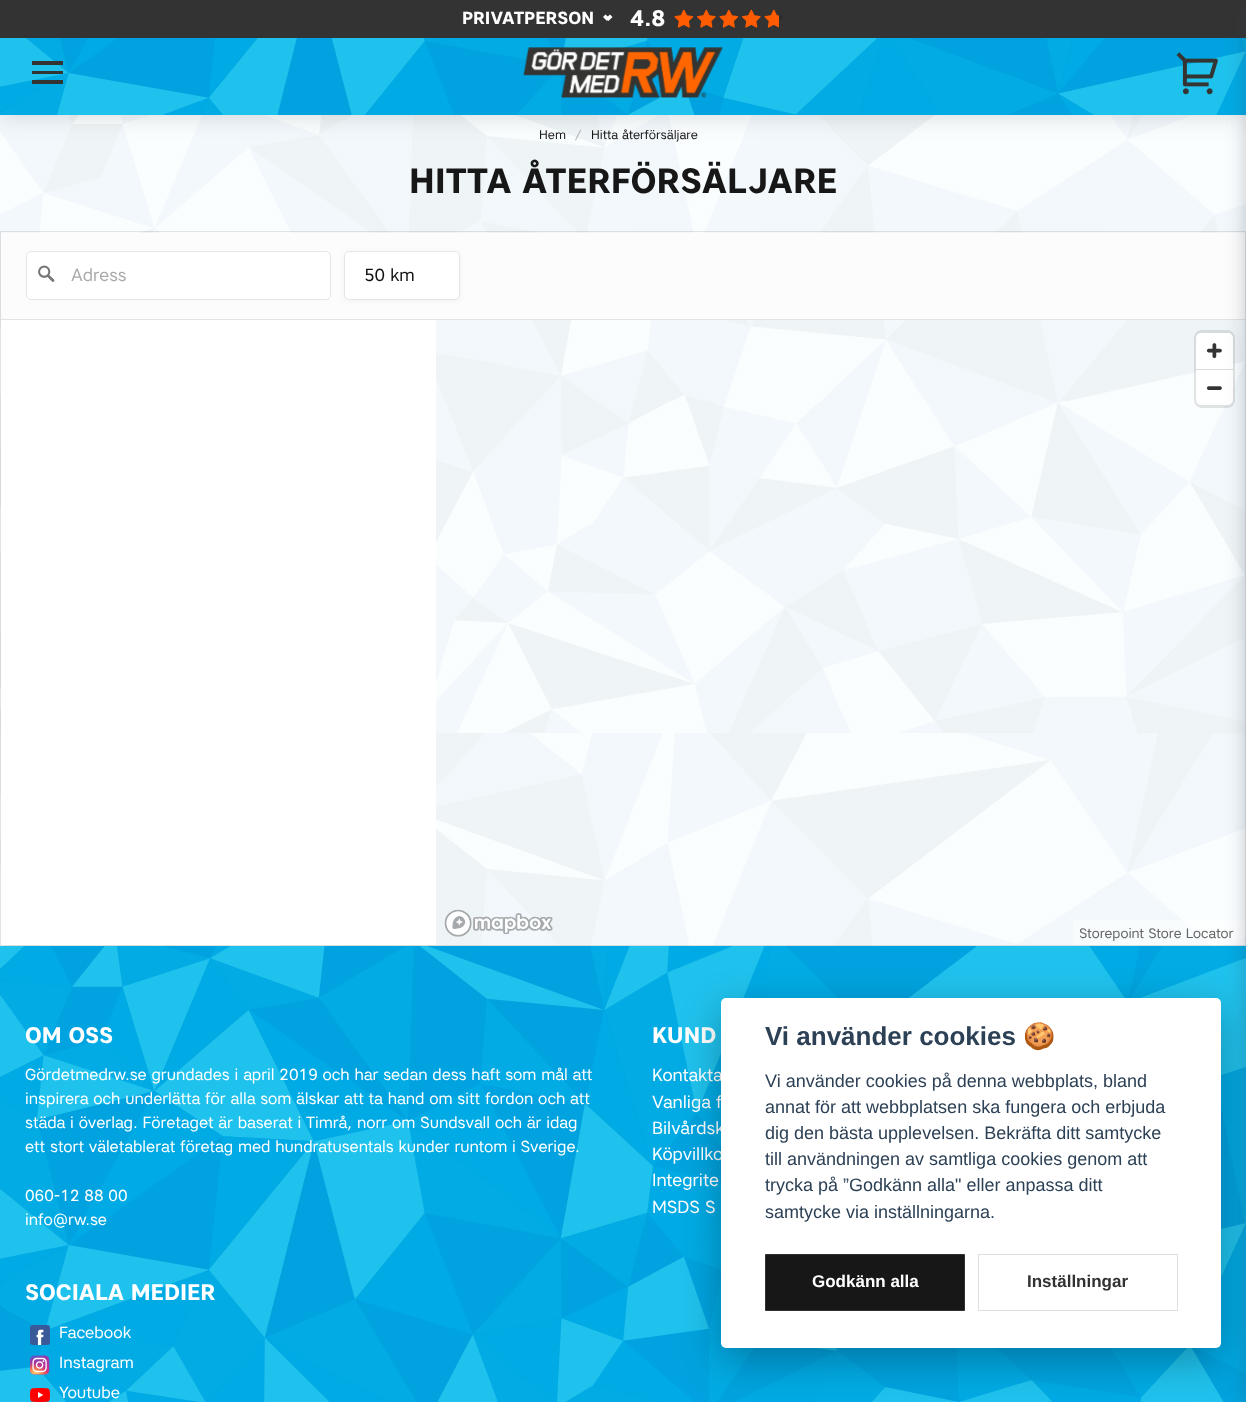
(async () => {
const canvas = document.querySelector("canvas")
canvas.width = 1246
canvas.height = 1402
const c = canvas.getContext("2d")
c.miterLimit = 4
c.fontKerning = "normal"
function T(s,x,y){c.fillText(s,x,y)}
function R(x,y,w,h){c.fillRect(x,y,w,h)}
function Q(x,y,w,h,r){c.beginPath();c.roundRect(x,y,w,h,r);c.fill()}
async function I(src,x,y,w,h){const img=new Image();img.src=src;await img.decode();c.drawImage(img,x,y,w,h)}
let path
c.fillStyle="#fff"
R(0,0,1246,1402)
await I("1.png",0,115,1246,831)
c.fillStyle="#00000026"
c.filter="blur(12.5px)"
c.beginPath()
c.rect(0,0,1246,115)
c.fill()
c.filter="none"
await I("2.png",0,38,1246,77)
c.fillStyle="#333"
R(0,0,1246,38)
c.font="bold 17.5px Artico"
c.fillStyle="#fff"
T("PRIVATPERSON",462,24)
path = new Path2D("M606 18l4-3.5l2.5 2.5l-4 4z")
c.fill(path)
path = new Path2D("M603 17l2.5-2.5l4 3.5l-2.5 3z")
c.fill(path)
c.font="bold 22.5px Artico"
T("4.8",630,26)
await I("4.png",675,10,18,17)
await I("3.png",674,9,20,19)
await I("6.png",697,10,18,17)
await I("5.png",697,9,19,19)
await I("4.png",720,10,18,17)
await I("3.png",719,9,20,19)
await I("6.png",742,10,18,17)
await I("5.png",742,9,19,19)
await I("4.png",765,10,18,17)
await I("7.png",764,9,15,19)
c.fillStyle="#343433"
R(32,61,31,4)
R(32,71,31,3)
R(32,80,31,4)
await I("8.png",523,47,200,51)
await I("9.png",1176,52,42,43)
c.strokeStyle="#0000001a"
c.strokeRect(.5,231.5,1245,714)
c.fillStyle="#fcfcfc"
R(1,233,1244,86)
c.fillStyle="#e3e3e3"
R(1,319,1244,1)
c.beginPath()
c.roundRect(1195.5,331.5,38,75,6.5)
c.lineWidth=3
c.stroke()
c.fillStyle="#fff"
Q(1196,333,37,72,5)
await I("11.png",1206,343,16,16)
c.fillStyle="#ddd"
R(1196,369,37,1)
await I("12.png",1206,386,16,4)
c.fillStyle="#ffffff80"
R(1073,920,172,25)
await I("14.png",0,946,1246,456)
c.fillStyle="#3c42574d"
c.filter="blur(9.5px)"
c.beginPath()
c.rect(1246,1,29,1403)
c.fill()
c.filter="none"
c.font="12.5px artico"
c.fillStyle="#171717"
T("Hem",539,139)
c.fillStyle="#b5b5b5"
T("/",575,139)
c.fillStyle="#171717"
T("Hitta återförsäljare",591,139)
c.font="bold 35px Artico"
T("HITTA ÅTERFÖRSÄLJARE",409,193)
c.fillStyle="#fff"
Q(26,251,305,49,5)
c.beginPath()
c.roundRect(26.5,251.5,304,48,4.5)
c.lineWidth=1
c.stroke()
await I("10.png",38,265,17,17)
c.font="17.5px artico"
c.fillStyle="#aaa"
T("Adress",71,281)
c.fillStyle="#0000000a"
c.filter="blur(3px)"
c.beginPath()
c.roundRect(344,253,116,48,5)
c.fill()
c.filter="none"
c.fillStyle="#fff"
Q(344,251,116,49,5)
c.beginPath()
c.roundRect(344.5,251.5,115,48,4.5)
c.stroke()
c.fillStyle="#111"
T("50 km",364,281)
c.fillStyle="#fff"
R(1,320,435,625)
await I("13.png",444,909,109,28)
c.font="13.75px artico"
c.fillStyle="#646565"
T("Storepoint Store Locator",1079,938)
c.font="bold 22.5px Artico"
c.fillStyle="#fff"
T("OM OSS",25,1043)
c.font="16px artico"
T("Gördetmedrw.se grundades i april 2019 och har sedan dess haft som mål att",25,1080)
T("inspirera och underlätta för alla som älskar att ta hand om sitt fordon och att",25,1104)
T("städa i överlag. Företaget är baserat i Timrå, norr om Sundsvall och är idag",25,1128)
T("ett stort väletablerat företag med hundratusentals kunder runtom i Sverige.",25,1152)
T("060-12 88 00",25,1201)
T("info@rw.se",25,1225)
c.font="bold 22.5px Artico"
T("KUND",652,1043)
c.font="17.5px artico"
T("Kontakta",652,1081)
T("Vanliga f",652,1108)
T("Bilvårdsk",652,1134)
T("Köpvillko",652,1160)
T("Integrite",652,1186)
T("MSDS S",652,1213)
c.font="bold 22.5px Artico"
T("SOCIALA MEDIER",25,1300)
await I("15.png",30,1325,20,20)
c.font="16.25px artico"
T("Facebook",59,1338)
await I("16.png",30,1355,20,20)
T("Instagram",59,1368)
await I("17.png",30,1388,20,14)
T("Youtube",59,1398)
c.fillStyle="#02020347"
c.filter="blur(19px)"
c.beginPath()
c.roundRect(721,1010,500,350,5)
c.fill()
c.filter="none"
c.fillStyle="#fff"
Q(721,998,500,350,5)
c.font="bold 26px Liberation Sans"
c.fillStyle="#2d4156"
T("Vi använder cookies",765,1045)
c.font="bold 26px Noto Color Emoji"
T("🍪",1023,1045)
c.font="18px Liberation Sans"
T("Vi använder cookies på denna webbplats, bland",765,1087)
T("annat för att webbplatsen ska fungera och erbjuda",765,1113)
T("dig den bästa upplevelsen. Bekräfta ditt samtycke",765,1139)
T("till användningen av samtliga cookies genom att",765,1165)
T("trycka på ”Godkänn alla\" eller anpassa ditt",765,1191)
T("samtycke via inställningarna.",765,1218)
c.fillStyle="#171717"
c.beginPath()
c.rect(765.5,1254.5,199,56)
c.fill()
c.strokeStyle="#323232"
c.stroke()
c.font="bold 17px Liberation Sans"
c.fillStyle="#fff"
T("Godkänn alla",812,1287)
c.strokeStyle="#dfdfdf"
c.strokeRect(978.5,1254.5,199,56)
c.fillStyle="#323232"
T("Inställningar",1027,1287)
})()
